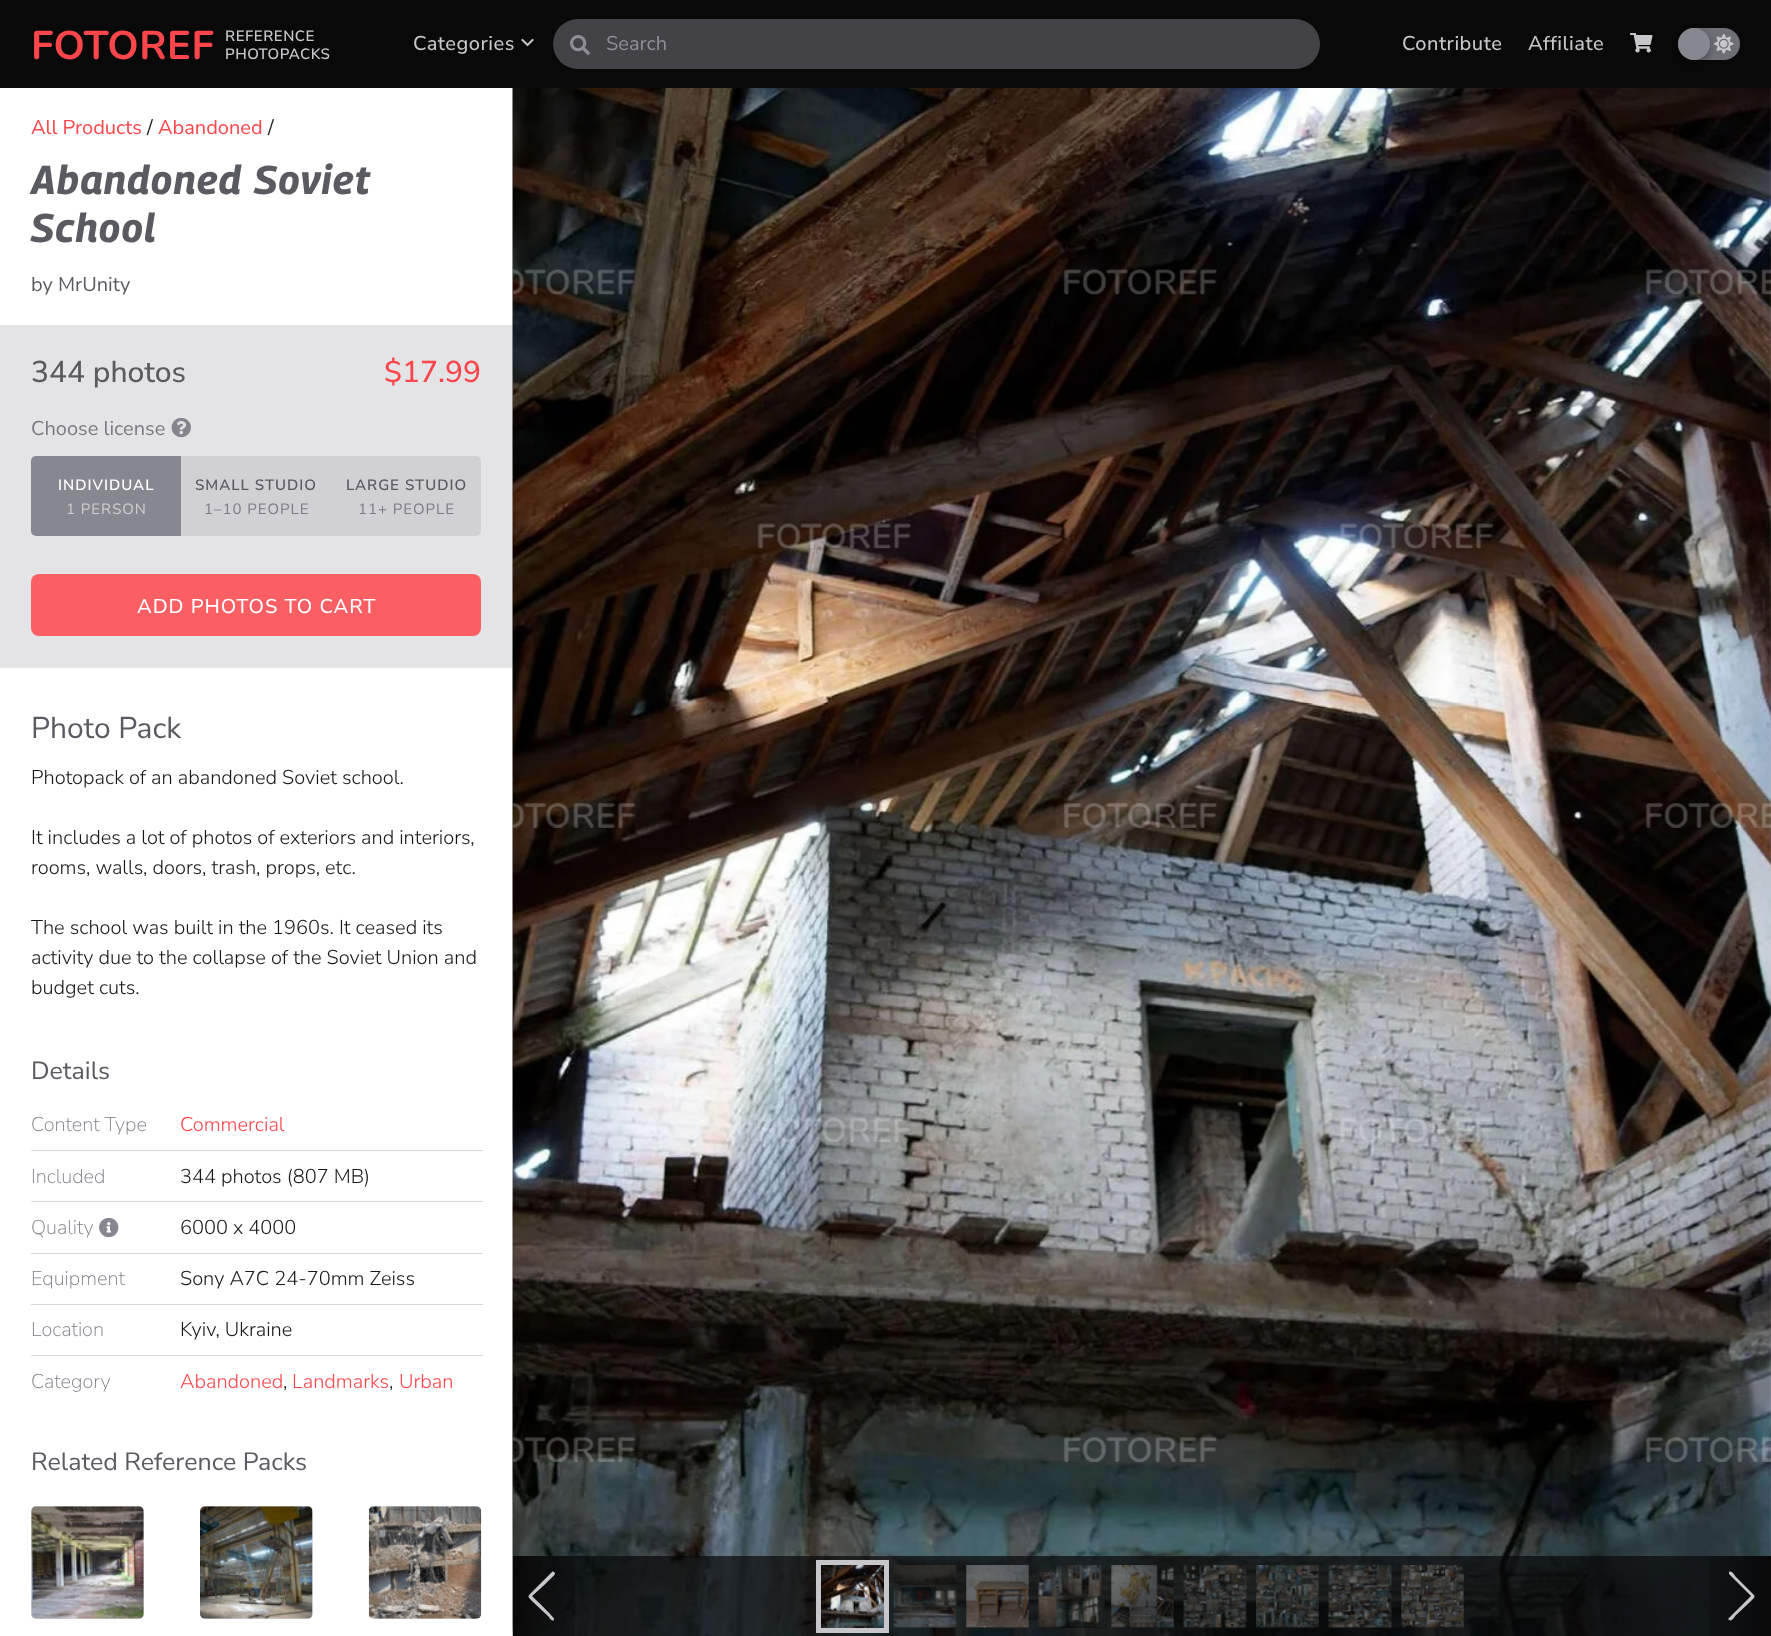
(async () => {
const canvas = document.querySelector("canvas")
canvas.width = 1771
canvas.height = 1636
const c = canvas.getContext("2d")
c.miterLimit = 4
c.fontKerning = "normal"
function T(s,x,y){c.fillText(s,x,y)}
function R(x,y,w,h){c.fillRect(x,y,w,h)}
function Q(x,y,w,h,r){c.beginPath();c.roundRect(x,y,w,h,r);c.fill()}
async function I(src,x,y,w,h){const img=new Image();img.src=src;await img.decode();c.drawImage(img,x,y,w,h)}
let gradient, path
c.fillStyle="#fff"
R(0,0,1771,1636)
c.fillStyle="#09090a"
R(0,0,1771,88)
c.letterSpacing="0.5px"
c.font="200 40px Nunito"
c.fillStyle="#fc464b"
T("FOTOREF",31,59)
c.font="600 15px Nunito Sans"
c.fillStyle="#c7c7cb"
T("REFERENCE",225,41)
T("PHOTOPACKS",225,59)
c.font="500 20px Nunito Sans"
T("Categories",413,50)
await I("1.png",521,38,13,9)
c.fillStyle="#424247"
Q(553,19,767,50,25)
await I("2.png",570,35,20,20)
c.letterSpacing="0px"
c.font="20px Nunito Sans"
c.fillStyle="#8f8f98"
T("Search",606,50)
c.letterSpacing="0.5px"
c.font="500 20px Nunito Sans"
c.fillStyle="#c7c7cb"
T("Contribute",1402,50)
T("Affiliate",1528,50)
await I("3.png",1630,33,23,20)
c.fillStyle="#6e6e77"
Q(1678,28,62,32,16)
await I("4.png",1714,34,20,20)
c.fillStyle="#0000004d"
c.filter="blur(3px)"
c.beginPath()
c.roundRect(1678,30,32,33,16)
c.fill()
c.filter="none"
c.fillStyle="#878790"
c.beginPath()
c.arc(1694,44,16,0,7)
c.fill()
c.letterSpacing="0px"
c.font="20px Nunito Sans"
c.fillStyle="#fc464b"
T("All Products",31,134)
c.fillStyle="#18181a"
T("/",147,134)
c.fillStyle="#fc464b"
T("Abandoned",158,134)
c.fillStyle="#18181a"
T("/",268,134)
c.letterSpacing="1.25px"
c.font="italic bold 40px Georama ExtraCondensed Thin"
c.fillStyle="#5a5a61"
T("Abandoned Soviet",31,194)
T("School",31,242)
c.letterSpacing="0px"
c.font="20px Nunito Sans"
T("by MrUnity",31,291)
c.fillStyle="#e4e4e6"
R(0,325,513,343)
c.font="500 30px Nunito Sans"
c.fillStyle="#5a5a61"
T("344 photos",31,382)
c.fillStyle="#fc464b"
T("$17.99",384,382)
c.font="20px Nunito Sans"
c.fillStyle="#7a7a84"
T("Choose license",31,435)
await I("5.png",171,418,20,20)
c.fillStyle="#878790"
c.beginPath()
c.roundRect(31,456,150,80,[5,0,0,5])
c.fill()
c.letterSpacing="1px"
c.font="600 15px Nunito Sans"
c.fillStyle="#fff"
T("INDIVIDUAL",58,490)
c.font="15px Nunito Sans"
c.fillStyle="#cfcfd3"
T("1 PERSON",66,514)
c.fillStyle="#d1d1d5"
R(181,456,150,80)
c.font="600 15px Nunito Sans"
c.fillStyle="#5a5a61"
T("SMALL STUDIO",195,490)
c.font="15px Nunito Sans"
c.fillStyle="#7a7a84"
T("1–10 PEOPLE",204,514)
c.fillStyle="#d1d1d5"
c.beginPath()
c.roundRect(331,456,150,80,[0,5,5,0])
c.fill()
c.font="600 15px Nunito Sans"
c.fillStyle="#5a5a61"
T("LARGE STUDIO",346,490)
c.font="15px Nunito Sans"
c.fillStyle="#7a7a84"
T("11+ PEOPLE",358,514)
c.fillStyle="#fc5f63"
Q(31,574,450,62,8)
c.font="500 20px Nunito Sans"
c.fillStyle="#fff"
T("ADD PHOTOS TO CART",137,613)
c.letterSpacing="0px"
c.font="30px Nunito Sans"
c.fillStyle="#5a5a61"
T("Photo Pack",31,738)
c.font="300 20px Nunito Sans"
c.fillStyle="#18181a"
T("Photopack of an abandoned Soviet school.",31,784)
T("It includes a lot of photos of exteriors and interiors,",31,844)
T("rooms, walls, doors, trash, props, etc.",31,874)
T("The school was built in the 1960s. It ceased its",31,934)
T("activity due to the collapse of the Soviet Union and",31,964)
T("budget cuts.",31,994)
c.font="25px Nunito Sans"
c.fillStyle="#5a5a61"
T("Details",31,1079)
c.font="200 20px Nunito Sans"
c.fillStyle="#7a7a84"
T("Content Type",31,1131)
c.font="300 20px Nunito Sans"
c.fillStyle="#fc464b"
T("Commercial",180,1131)
c.font="200 20px Nunito Sans"
c.fillStyle="#7a7a84"
T("Included",31,1183)
c.fillStyle="#d7d7da"
R(31,1150,452,1)
c.font="300 20px Nunito Sans"
c.fillStyle="#18181a"
T("344 photos (807 MB)",180,1183)
c.font="200 20px Nunito Sans"
c.fillStyle="#7a7a84"
T("Quality",31,1234)
await I("6.png",99,1218,20,20)
c.fillStyle="#d7d7da"
R(31,1201,452,1)
c.font="300 20px Nunito Sans"
c.fillStyle="#18181a"
T("6000 x 4000",180,1234)
c.font="200 20px Nunito Sans"
c.fillStyle="#7a7a84"
T("Equipment",31,1285)
c.fillStyle="#d7d7da"
R(31,1253,452,1)
c.font="300 20px Nunito Sans"
c.fillStyle="#18181a"
T("Sony A7C 24-70mm Zeiss",180,1285)
c.font="200 20px Nunito Sans"
c.fillStyle="#7a7a84"
T("Location",31,1336)
c.fillStyle="#d7d7da"
R(31,1304,452,1)
c.font="300 20px Nunito Sans"
c.fillStyle="#18181a"
T("Kyiv, Ukraine",180,1336)
c.font="200 20px Nunito Sans"
c.fillStyle="#7a7a84"
T("Category",31,1388)
c.fillStyle="#d7d7da"
R(31,1355,452,1)
c.font="300 20px Nunito Sans"
c.fillStyle="#fc464b"
T("Abandoned",180,1388)
c.fillStyle="#18181a"
T(",",283,1388)
c.fillStyle="#fc464b"
T("Landmarks",292,1388)
c.fillStyle="#18181a"
T(",",389,1388)
c.fillStyle="#fc464b"
T("Urban",399,1388)
c.font="25px Nunito Sans"
c.fillStyle="#5a5a61"
T("Related Reference Packs",31,1470)
c.fillStyle="#e4e4e6"
Q(31,1506,113,113,5)
await I("7.png",31,1506,113,113)
Q(200,1506,113,113,5)
await I("8.png",200,1506,113,113)
Q(369,1506,112,113,5)
await I("9.png",368,1506,114,113)
await I("10.png",512,88,1259,1548)
await I("11.png",513,88,1258,1548)
await I("12.png",513,269,1258,1193)
c.fillStyle="#09090ab3"
R(514,1556,1256,80)
gradient = c.createLinearGradient(575,1596,513,1596)
gradient.addColorStop(0,"#09090a4d")
gradient.addColorStop(1,"#09090a")
c.fillStyle = gradient
R(513,1556,62,80)
c.fillStyle="#c7c7cb"
path = new Path2D("M552 1572c1-1 3 0 3 2c0 1-20 20-23 22c3 3 23 22 22 23c0 4-4 0-6-3l-15-14c-6-6-6-5 0-11z")
c.fill(path)
c.strokeStyle="#c7c7cb"
c.lineWidth=5
c.strokeRect(818.5,1562.5,68,68)
c.fillStyle="#09090a"
R(821,1565,1,63)
await I("13.png",821,1565,63,63)
c.fillStyle="#09090a80"
R(894,1565,62,63)
await I("14.png",893,1565,64,63)
R(966,1565,63,63)
await I("15.png",966,1565,63,63)
R(1039,1565,62,63)
await I("16.png",1038,1565,64,63)
R(1111,1565,63,63)
await I("17.png",1111,1565,63,63)
R(1184,1565,62,63)
await I("18.png",1183,1565,64,63)
R(1256,1565,63,63)
await I("19.png",1256,1565,63,63)
R(1329,1565,62,63)
await I("20.png",1328,1565,64,63)
R(1401,1565,63,63)
await I("21.png",1401,1565,63,63)
gradient = c.createLinearGradient(1709,1596,1771,1596)
gradient.addColorStop(0,"#09090a4d")
gradient.addColorStop(1,"#09090a")
c.fillStyle = gradient
R(1709,1556,62,80)
c.fillStyle="#c7c7cb"
path = new Path2D("M1729 1620c-1-1-1-2 0-2l22-22l-18-18l-4-4v-2c2-2 6 3 6 4l15 15c6 6 6 5 0 11l-15 14c0 1-4 6-6 4z")
c.fill(path)
})()
